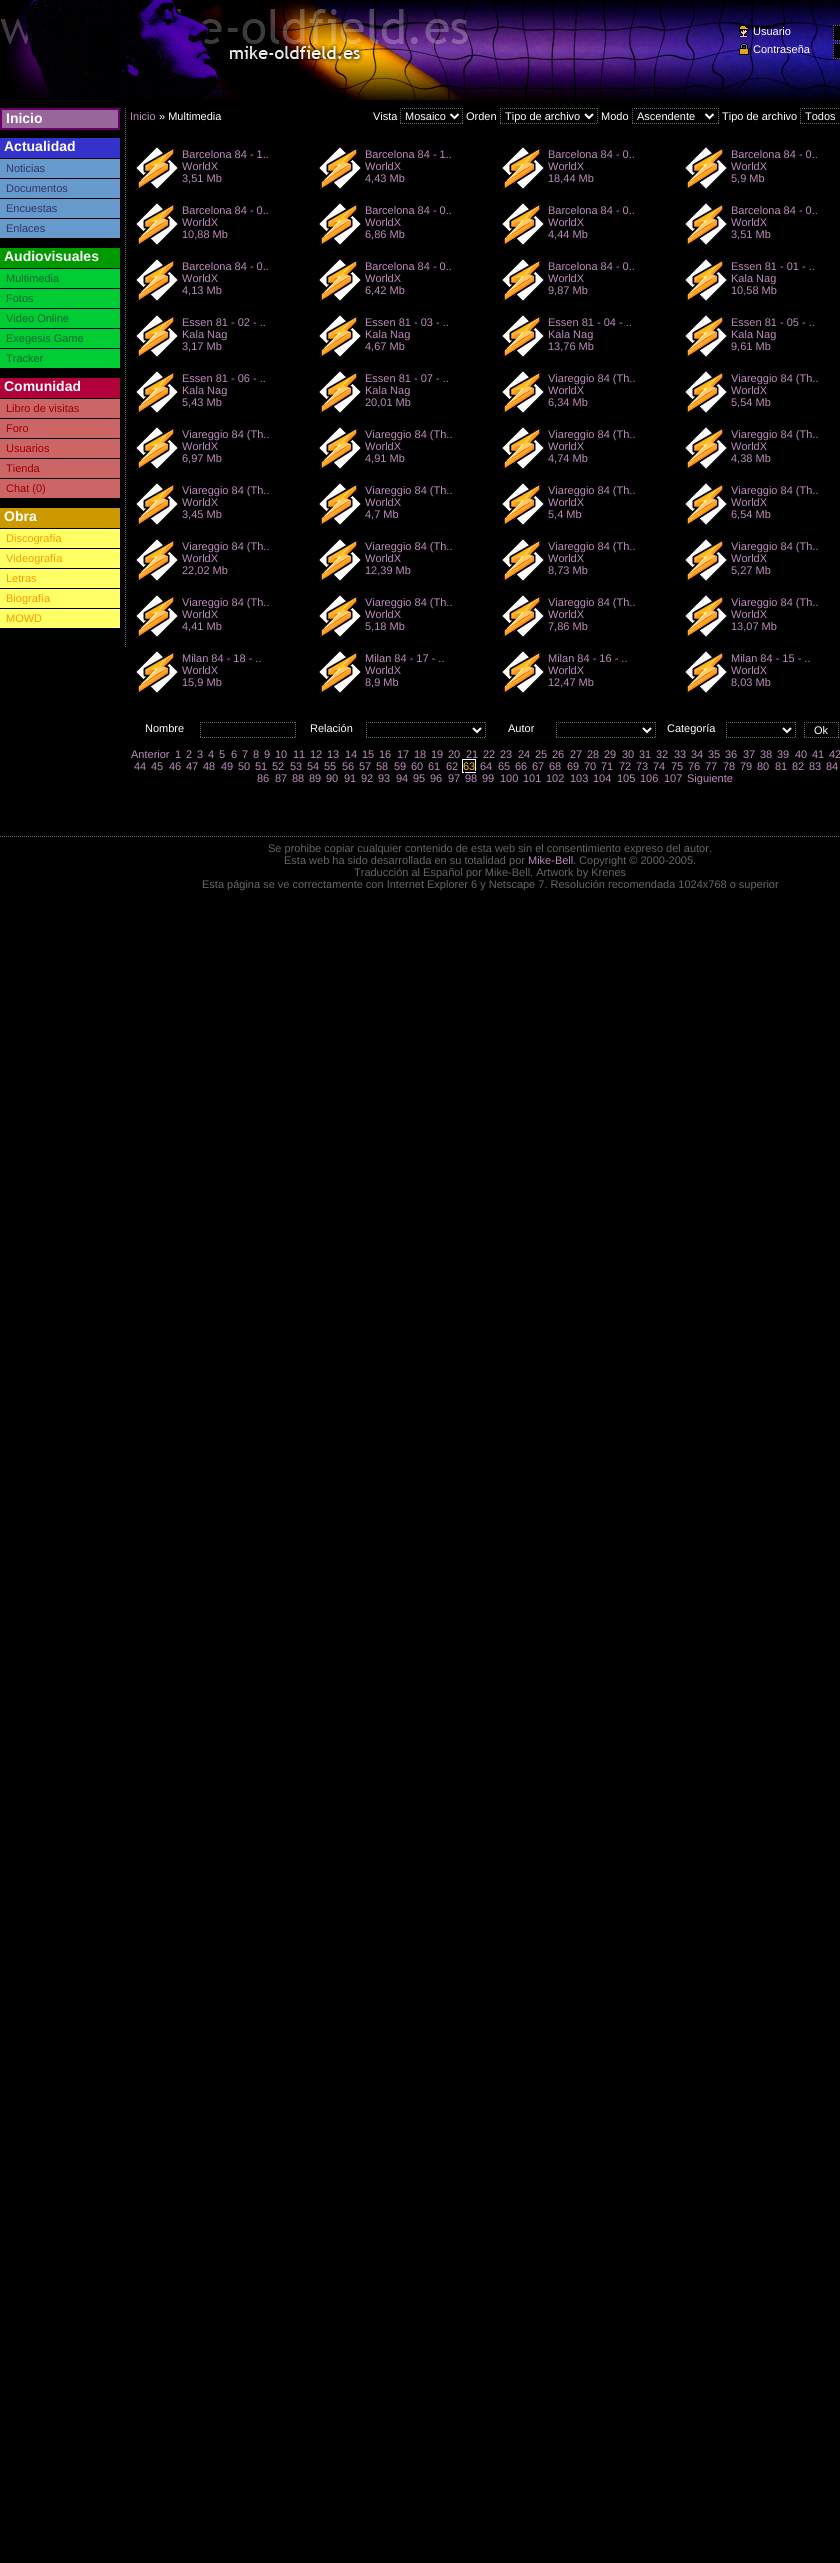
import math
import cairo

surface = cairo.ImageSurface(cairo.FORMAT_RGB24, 840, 2563)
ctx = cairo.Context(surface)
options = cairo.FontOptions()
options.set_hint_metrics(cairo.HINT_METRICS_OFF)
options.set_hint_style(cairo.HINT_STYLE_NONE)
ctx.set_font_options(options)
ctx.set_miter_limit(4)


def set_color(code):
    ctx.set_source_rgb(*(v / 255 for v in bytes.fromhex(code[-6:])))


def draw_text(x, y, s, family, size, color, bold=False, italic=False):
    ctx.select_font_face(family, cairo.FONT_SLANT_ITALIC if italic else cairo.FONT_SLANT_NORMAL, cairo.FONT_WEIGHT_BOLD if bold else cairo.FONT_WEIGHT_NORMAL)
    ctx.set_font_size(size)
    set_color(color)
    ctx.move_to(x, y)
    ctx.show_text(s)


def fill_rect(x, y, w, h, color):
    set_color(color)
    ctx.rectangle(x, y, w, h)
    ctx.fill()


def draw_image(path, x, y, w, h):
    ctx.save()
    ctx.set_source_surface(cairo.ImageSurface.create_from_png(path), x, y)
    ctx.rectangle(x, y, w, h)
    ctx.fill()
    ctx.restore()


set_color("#000000")
ctx.paint()
draw_image("assets/img1.png", 0, 0, 840, 100)
draw_image("assets/img2.png", 739, 25, 10, 12)
draw_text(753, 35, "Usuario", "Liberation Sans", 11, "#ffffff")
fill_rect(833, 25, 7, 16, "#000000")
ctx.new_path()
ctx.move_to(833, 25.5)
ctx.line_to(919, 25.5)
ctx.move_to(833, 40.5)
ctx.line_to(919, 40.5)
ctx.move_to(833.5, 25)
ctx.line_to(833.5, 41)
set_color("#666666")
ctx.set_line_width(1)
ctx.set_dash([1, 1])
ctx.stroke()
draw_image("assets/img3.png", 739, 43, 10, 12)
draw_text(753, 53, "Contraseña", "Liberation Sans", 11, "#ffffff")
fill_rect(833, 43, 7, 16, "#000000")
ctx.new_path()
ctx.move_to(833, 43.5)
ctx.line_to(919, 43.5)
ctx.move_to(833, 58.5)
ctx.line_to(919, 58.5)
ctx.move_to(833.5, 43)
ctx.line_to(833.5, 59)
set_color("#666666")
ctx.stroke()
ctx.new_path()
ctx.move_to(125.5, 108)
ctx.line_to(125.5, 648)
ctx.stroke()
set_color("#996699")
ctx.rectangle(1, 109, 118, 20)
ctx.fill_preserve()
set_color("#660066")
ctx.set_line_width(2)
ctx.set_dash([])
ctx.stroke()
draw_text(6, 123, "Inicio", "Liberation Sans", 14, "#ffffff", bold=True)
fill_rect(0, 138, 120, 20, "#3333cc")
draw_text(4, 151, "Actualidad", "Liberation Sans", 14, "#ffffff", bold=True)
fill_rect(0, 159, 120, 19, "#6699cc")
draw_text(6, 172, "Noticias", "Liberation Sans", 11, "#333366")
fill_rect(0, 179, 120, 19, "#6699cc")
draw_text(6, 192, "Documentos", "Liberation Sans", 11, "#333366")
fill_rect(0, 199, 120, 19, "#6699cc")
draw_text(6, 212, "Encuestas", "Liberation Sans", 11, "#333366")
fill_rect(0, 219, 120, 19, "#6699cc")
draw_text(6, 232, "Enlaces", "Liberation Sans", 11, "#333366")
fill_rect(0, 248, 120, 20, "#009900")
draw_text(4, 261, "Audiovisuales", "Liberation Sans", 14, "#ffffff", bold=True)
fill_rect(0, 269, 120, 19, "#00cc33")
draw_text(6, 282, "Multimedia", "Liberation Sans", 11, "#006633")
fill_rect(0, 289, 120, 19, "#00cc33")
draw_text(6, 302, "Fotos", "Liberation Sans", 11, "#006633")
fill_rect(0, 309, 120, 19, "#00cc33")
draw_text(6, 322, "Video Online", "Liberation Sans", 11, "#006633")
fill_rect(0, 329, 120, 19, "#00cc33")
draw_text(6, 342, "Exegesis Game", "Liberation Sans", 11, "#006633")
fill_rect(0, 349, 120, 19, "#00cc33")
draw_text(6, 362, "Tracker", "Liberation Sans", 11, "#006633")
fill_rect(0, 378, 120, 20, "#b1013b")
draw_text(4, 391, "Comunidad", "Liberation Sans", 14, "#ffffff", bold=True)
fill_rect(0, 399, 120, 19, "#cc6666")
draw_text(6, 412, "Libro de visitas", "Liberation Sans", 11, "#990000")
fill_rect(0, 419, 120, 19, "#cc6666")
draw_text(6, 432, "Foro", "Liberation Sans", 11, "#990000")
fill_rect(0, 439, 120, 19, "#cc6666")
draw_text(6, 452, "Usuarios", "Liberation Sans", 11, "#990000")
fill_rect(0, 459, 120, 19, "#cc6666")
draw_text(6, 472, "Tienda", "Liberation Sans", 11, "#990000")
fill_rect(0, 479, 120, 19, "#cc6666")
draw_text(6, 492, "Chat (0)", "Liberation Sans", 11, "#990000")
fill_rect(0, 508, 120, 20, "#cc9900")
draw_text(4, 521, "Obra", "Liberation Sans", 14, "#ffffff", bold=True)
fill_rect(0, 529, 120, 19, "#ffff66")
draw_text(6, 542, "Discografía", "Liberation Sans", 11, "#ff9900")
fill_rect(0, 549, 120, 19, "#ffff66")
draw_text(6, 562, "Videografía", "Liberation Sans", 11, "#ff9900")
fill_rect(0, 569, 120, 19, "#ffff66")
draw_text(6, 582, "Letras", "Liberation Sans", 11, "#ff9900")
fill_rect(0, 589, 120, 19, "#ffff66")
draw_text(6, 602, "Biografía", "Liberation Sans", 11, "#ff9900")
fill_rect(0, 609, 120, 19, "#ffff66")
draw_text(6, 622, "MOWD", "Liberation Sans", 11, "#ff9900")
draw_text(130, 120, "Inicio", "Liberation Sans", 11, "#bd8bbd")
draw_text(159, 120, "» Multimedia", "Liberation Sans", 11, "#ffffff")
draw_text(373, 120, "Vista", "Liberation Sans", 11, "#ffffff")
ctx.new_path()
ctx.move_to(400, 108.5)
ctx.line_to(463, 108.5)
ctx.move_to(462.5, 108)
ctx.line_to(462.5, 124)
ctx.move_to(400, 123.5)
ctx.line_to(463, 123.5)
ctx.move_to(400.5, 108)
ctx.line_to(400.5, 124)
set_color("#666666")
ctx.set_line_width(1)
ctx.set_dash([1, 1])
ctx.stroke()
ctx.new_path()
ctx.move_to(450.5, 114)
ctx.line_to(454.5, 118)
ctx.line_to(458.5, 114)
set_color("#ffffff")
ctx.set_line_width(2)
ctx.set_dash([])
ctx.stroke()
draw_text(405, 120, "Mosaico", "Liberation Sans", 11, "#ffffff")
draw_text(466, 120, "Orden", "Liberation Sans", 11, "#ffffff")
ctx.new_path()
ctx.move_to(500, 108.5)
ctx.line_to(598, 108.5)
set_color("#666666")
ctx.set_line_width(1)
ctx.set_dash([1, 1])
ctx.stroke()
ctx.new_path()
ctx.move_to(597.5, 108)
ctx.line_to(597.5, 124)
ctx.stroke()
ctx.new_path()
ctx.move_to(500, 123.5)
ctx.line_to(598, 123.5)
ctx.stroke()
ctx.new_path()
ctx.move_to(500.5, 108)
ctx.line_to(500.5, 124)
ctx.stroke()
ctx.new_path()
ctx.move_to(585, 114)
ctx.line_to(589, 118)
ctx.line_to(593, 114)
set_color("#ffffff")
ctx.set_line_width(2)
ctx.set_dash([])
ctx.stroke()
draw_text(505, 120, "Tipo de archivo", "Liberation Sans", 11, "#ffffff")
draw_text(601, 120, "Modo", "Liberation Sans", 11, "#ffffff")
ctx.new_path()
ctx.move_to(632, 108.5)
ctx.line_to(719, 108.5)
set_color("#666666")
ctx.set_line_width(1)
ctx.set_dash([1, 1])
ctx.stroke()
ctx.new_path()
ctx.move_to(718.5, 108)
ctx.line_to(718.5, 124)
ctx.stroke()
ctx.new_path()
ctx.move_to(632, 123.5)
ctx.line_to(719, 123.5)
ctx.stroke()
ctx.new_path()
ctx.move_to(632.5, 108)
ctx.line_to(632.5, 124)
ctx.stroke()
ctx.new_path()
ctx.move_to(705.5, 114)
ctx.line_to(709.5, 118)
ctx.line_to(713.5, 114)
set_color("#ffffff")
ctx.set_line_width(2)
ctx.set_dash([])
ctx.stroke()
draw_text(637, 120, "Ascendente", "Liberation Sans", 11, "#ffffff")
draw_text(722, 120, "Tipo de archivo", "Liberation Sans", 11, "#ffffff")
ctx.new_path()
ctx.move_to(800, 108.5)
ctx.line_to(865, 108.5)
ctx.move_to(800, 123.5)
ctx.line_to(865, 123.5)
ctx.move_to(800.5, 108)
ctx.line_to(800.5, 124)
set_color("#666666")
ctx.set_line_width(1)
ctx.set_dash([1, 1])
ctx.stroke()
draw_text(805, 120, "Todos", "Liberation Sans", 11, "#ffffff")
draw_image("assets/img4.png", 136, 147, 42, 42)
draw_text(182, 158, "Barcelona 84 - 1..", "Liberation Sans", 11, "#bd8bbd")
draw_text(182, 170, "WorldX", "Liberation Sans", 11, "#bd8bbd")
draw_text(182, 182, "3,51 Mb", "Liberation Sans", 11, "#bd8bbd")
draw_image("assets/img4.png", 319, 147, 42, 42)
draw_text(365, 158, "Barcelona 84 - 1..", "Liberation Sans", 11, "#bd8bbd")
draw_text(365, 170, "WorldX", "Liberation Sans", 11, "#bd8bbd")
draw_text(365, 182, "4,43 Mb", "Liberation Sans", 11, "#bd8bbd")
draw_image("assets/img4.png", 502, 147, 42, 42)
draw_text(548, 158, "Barcelona 84 - 0..", "Liberation Sans", 11, "#bd8bbd")
draw_text(548, 170, "WorldX", "Liberation Sans", 11, "#bd8bbd")
draw_text(548, 182, "18,44 Mb", "Liberation Sans", 11, "#bd8bbd")
draw_image("assets/img4.png", 685, 147, 42, 42)
draw_text(731, 158, "Barcelona 84 - 0..", "Liberation Sans", 11, "#bd8bbd")
draw_text(731, 170, "WorldX", "Liberation Sans", 11, "#bd8bbd")
draw_text(731, 182, "5,9 Mb", "Liberation Sans", 11, "#bd8bbd")
draw_image("assets/img4.png", 136, 203, 42, 42)
draw_text(182, 214, "Barcelona 84 - 0..", "Liberation Sans", 11, "#bd8bbd")
draw_text(182, 226, "WorldX", "Liberation Sans", 11, "#bd8bbd")
draw_text(182, 238, "10,88 Mb", "Liberation Sans", 11, "#bd8bbd")
draw_image("assets/img4.png", 319, 203, 42, 42)
draw_text(365, 214, "Barcelona 84 - 0..", "Liberation Sans", 11, "#bd8bbd")
draw_text(365, 226, "WorldX", "Liberation Sans", 11, "#bd8bbd")
draw_text(365, 238, "6,86 Mb", "Liberation Sans", 11, "#bd8bbd")
draw_image("assets/img4.png", 502, 203, 42, 42)
draw_text(548, 214, "Barcelona 84 - 0..", "Liberation Sans", 11, "#bd8bbd")
draw_text(548, 226, "WorldX", "Liberation Sans", 11, "#bd8bbd")
draw_text(548, 238, "4,44 Mb", "Liberation Sans", 11, "#bd8bbd")
draw_image("assets/img4.png", 685, 203, 42, 42)
draw_text(731, 214, "Barcelona 84 - 0..", "Liberation Sans", 11, "#bd8bbd")
draw_text(731, 226, "WorldX", "Liberation Sans", 11, "#bd8bbd")
draw_text(731, 238, "3,51 Mb", "Liberation Sans", 11, "#bd8bbd")
draw_image("assets/img4.png", 136, 259, 42, 42)
draw_text(182, 270, "Barcelona 84 - 0..", "Liberation Sans", 11, "#bd8bbd")
draw_text(182, 282, "WorldX", "Liberation Sans", 11, "#bd8bbd")
draw_text(182, 294, "4,13 Mb", "Liberation Sans", 11, "#bd8bbd")
draw_image("assets/img4.png", 319, 259, 42, 42)
draw_text(365, 270, "Barcelona 84 - 0..", "Liberation Sans", 11, "#bd8bbd")
draw_text(365, 282, "WorldX", "Liberation Sans", 11, "#bd8bbd")
draw_text(365, 294, "6,42 Mb", "Liberation Sans", 11, "#bd8bbd")
draw_image("assets/img4.png", 502, 259, 42, 42)
draw_text(548, 270, "Barcelona 84 - 0..", "Liberation Sans", 11, "#bd8bbd")
draw_text(548, 282, "WorldX", "Liberation Sans", 11, "#bd8bbd")
draw_text(548, 294, "9,87 Mb", "Liberation Sans", 11, "#bd8bbd")
draw_image("assets/img4.png", 685, 259, 42, 42)
draw_text(731, 270, "Essen 81 - 01 - ..", "Liberation Sans", 11, "#bd8bbd")
draw_text(731, 282, "Kala Nag", "Liberation Sans", 11, "#bd8bbd")
draw_text(731, 294, "10,58 Mb", "Liberation Sans", 11, "#bd8bbd")
draw_image("assets/img4.png", 136, 315, 42, 42)
draw_text(182, 326, "Essen 81 - 02 - ..", "Liberation Sans", 11, "#bd8bbd")
draw_text(182, 338, "Kala Nag", "Liberation Sans", 11, "#bd8bbd")
draw_text(182, 350, "3,17 Mb", "Liberation Sans", 11, "#bd8bbd")
draw_image("assets/img4.png", 319, 315, 42, 42)
draw_text(365, 326, "Essen 81 - 03 - ..", "Liberation Sans", 11, "#bd8bbd")
draw_text(365, 338, "Kala Nag", "Liberation Sans", 11, "#bd8bbd")
draw_text(365, 350, "4,67 Mb", "Liberation Sans", 11, "#bd8bbd")
draw_image("assets/img4.png", 502, 315, 42, 42)
draw_text(548, 326, "Essen 81 - 04 - ..", "Liberation Sans", 11, "#bd8bbd")
draw_text(548, 338, "Kala Nag", "Liberation Sans", 11, "#bd8bbd")
draw_text(548, 350, "13,76 Mb", "Liberation Sans", 11, "#bd8bbd")
draw_image("assets/img4.png", 685, 315, 42, 42)
draw_text(731, 326, "Essen 81 - 05 - ..", "Liberation Sans", 11, "#bd8bbd")
draw_text(731, 338, "Kala Nag", "Liberation Sans", 11, "#bd8bbd")
draw_text(731, 350, "9,61 Mb", "Liberation Sans", 11, "#bd8bbd")
draw_image("assets/img4.png", 136, 371, 42, 42)
draw_text(182, 382, "Essen 81 - 06 - ..", "Liberation Sans", 11, "#bd8bbd")
draw_text(182, 394, "Kala Nag", "Liberation Sans", 11, "#bd8bbd")
draw_text(182, 406, "5,43 Mb", "Liberation Sans", 11, "#bd8bbd")
draw_image("assets/img4.png", 319, 371, 42, 42)
draw_text(365, 382, "Essen 81 - 07 - ..", "Liberation Sans", 11, "#bd8bbd")
draw_text(365, 394, "Kala Nag", "Liberation Sans", 11, "#bd8bbd")
draw_text(365, 406, "20,01 Mb", "Liberation Sans", 11, "#bd8bbd")
draw_image("assets/img4.png", 502, 371, 42, 42)
draw_text(548, 382, "Viareggio 84 (Th..", "Liberation Sans", 11, "#bd8bbd")
draw_text(548, 394, "WorldX", "Liberation Sans", 11, "#bd8bbd")
draw_text(548, 406, "6,34 Mb", "Liberation Sans", 11, "#bd8bbd")
draw_image("assets/img4.png", 685, 371, 42, 42)
draw_text(731, 382, "Viareggio 84 (Th..", "Liberation Sans", 11, "#bd8bbd")
draw_text(731, 394, "WorldX", "Liberation Sans", 11, "#bd8bbd")
draw_text(731, 406, "5,54 Mb", "Liberation Sans", 11, "#bd8bbd")
draw_image("assets/img4.png", 136, 427, 42, 42)
draw_text(182, 438, "Viareggio 84 (Th..", "Liberation Sans", 11, "#bd8bbd")
draw_text(182, 450, "WorldX", "Liberation Sans", 11, "#bd8bbd")
draw_text(182, 462, "6,97 Mb", "Liberation Sans", 11, "#bd8bbd")
draw_image("assets/img4.png", 319, 427, 42, 42)
draw_text(365, 438, "Viareggio 84 (Th..", "Liberation Sans", 11, "#bd8bbd")
draw_text(365, 450, "WorldX", "Liberation Sans", 11, "#bd8bbd")
draw_text(365, 462, "4,91 Mb", "Liberation Sans", 11, "#bd8bbd")
draw_image("assets/img4.png", 502, 427, 42, 42)
draw_text(548, 438, "Viareggio 84 (Th..", "Liberation Sans", 11, "#bd8bbd")
draw_text(548, 450, "WorldX", "Liberation Sans", 11, "#bd8bbd")
draw_text(548, 462, "4,74 Mb", "Liberation Sans", 11, "#bd8bbd")
draw_image("assets/img4.png", 685, 427, 42, 42)
draw_text(731, 438, "Viareggio 84 (Th..", "Liberation Sans", 11, "#bd8bbd")
draw_text(731, 450, "WorldX", "Liberation Sans", 11, "#bd8bbd")
draw_text(731, 462, "4,38 Mb", "Liberation Sans", 11, "#bd8bbd")
draw_image("assets/img4.png", 136, 483, 42, 42)
draw_text(182, 494, "Viareggio 84 (Th..", "Liberation Sans", 11, "#bd8bbd")
draw_text(182, 506, "WorldX", "Liberation Sans", 11, "#bd8bbd")
draw_text(182, 518, "3,45 Mb", "Liberation Sans", 11, "#bd8bbd")
draw_image("assets/img4.png", 319, 483, 42, 42)
draw_text(365, 494, "Viareggio 84 (Th..", "Liberation Sans", 11, "#bd8bbd")
draw_text(365, 506, "WorldX", "Liberation Sans", 11, "#bd8bbd")
draw_text(365, 518, "4,7 Mb", "Liberation Sans", 11, "#bd8bbd")
draw_image("assets/img4.png", 502, 483, 42, 42)
draw_text(548, 494, "Viareggio 84 (Th..", "Liberation Sans", 11, "#bd8bbd")
draw_text(548, 506, "WorldX", "Liberation Sans", 11, "#bd8bbd")
draw_text(548, 518, "5,4 Mb", "Liberation Sans", 11, "#bd8bbd")
draw_image("assets/img4.png", 685, 483, 42, 42)
draw_text(731, 494, "Viareggio 84 (Th..", "Liberation Sans", 11, "#bd8bbd")
draw_text(731, 506, "WorldX", "Liberation Sans", 11, "#bd8bbd")
draw_text(731, 518, "6,54 Mb", "Liberation Sans", 11, "#bd8bbd")
draw_image("assets/img4.png", 136, 539, 42, 42)
draw_text(182, 550, "Viareggio 84 (Th..", "Liberation Sans", 11, "#bd8bbd")
draw_text(182, 562, "WorldX", "Liberation Sans", 11, "#bd8bbd")
draw_text(182, 574, "22,02 Mb", "Liberation Sans", 11, "#bd8bbd")
draw_image("assets/img4.png", 319, 539, 42, 42)
draw_text(365, 550, "Viareggio 84 (Th..", "Liberation Sans", 11, "#bd8bbd")
draw_text(365, 562, "WorldX", "Liberation Sans", 11, "#bd8bbd")
draw_text(365, 574, "12,39 Mb", "Liberation Sans", 11, "#bd8bbd")
draw_image("assets/img4.png", 502, 539, 42, 42)
draw_text(548, 550, "Viareggio 84 (Th..", "Liberation Sans", 11, "#bd8bbd")
draw_text(548, 562, "WorldX", "Liberation Sans", 11, "#bd8bbd")
draw_text(548, 574, "8,73 Mb", "Liberation Sans", 11, "#bd8bbd")
draw_image("assets/img4.png", 685, 539, 42, 42)
draw_text(731, 550, "Viareggio 84 (Th..", "Liberation Sans", 11, "#bd8bbd")
draw_text(731, 562, "WorldX", "Liberation Sans", 11, "#bd8bbd")
draw_text(731, 574, "5,27 Mb", "Liberation Sans", 11, "#bd8bbd")
draw_image("assets/img4.png", 136, 595, 42, 42)
draw_text(182, 606, "Viareggio 84 (Th..", "Liberation Sans", 11, "#bd8bbd")
draw_text(182, 618, "WorldX", "Liberation Sans", 11, "#bd8bbd")
draw_text(182, 630, "4,41 Mb", "Liberation Sans", 11, "#bd8bbd")
draw_image("assets/img4.png", 319, 595, 42, 42)
draw_text(365, 606, "Viareggio 84 (Th..", "Liberation Sans", 11, "#bd8bbd")
draw_text(365, 618, "WorldX", "Liberation Sans", 11, "#bd8bbd")
draw_text(365, 630, "5,18 Mb", "Liberation Sans", 11, "#bd8bbd")
draw_image("assets/img4.png", 502, 595, 42, 42)
draw_text(548, 606, "Viareggio 84 (Th..", "Liberation Sans", 11, "#bd8bbd")
draw_text(548, 618, "WorldX", "Liberation Sans", 11, "#bd8bbd")
draw_text(548, 630, "7,86 Mb", "Liberation Sans", 11, "#bd8bbd")
draw_image("assets/img4.png", 685, 595, 42, 42)
draw_text(731, 606, "Viareggio 84 (Th..", "Liberation Sans", 11, "#bd8bbd")
draw_text(731, 618, "WorldX", "Liberation Sans", 11, "#bd8bbd")
draw_text(731, 630, "13,07 Mb", "Liberation Sans", 11, "#bd8bbd")
draw_image("assets/img4.png", 136, 651, 42, 42)
draw_text(182, 662, "Milan 84 - 18 - ..", "Liberation Sans", 11, "#bd8bbd")
draw_text(182, 674, "WorldX", "Liberation Sans", 11, "#bd8bbd")
draw_text(182, 686, "15,9 Mb", "Liberation Sans", 11, "#bd8bbd")
draw_image("assets/img4.png", 319, 651, 42, 42)
draw_text(365, 662, "Milan 84 - 17 - ..", "Liberation Sans", 11, "#bd8bbd")
draw_text(365, 674, "WorldX", "Liberation Sans", 11, "#bd8bbd")
draw_text(365, 686, "8,9 Mb", "Liberation Sans", 11, "#bd8bbd")
draw_image("assets/img4.png", 502, 651, 42, 42)
draw_text(548, 662, "Milan 84 - 16 - ..", "Liberation Sans", 11, "#bd8bbd")
draw_text(548, 674, "WorldX", "Liberation Sans", 11, "#bd8bbd")
draw_text(548, 686, "12,47 Mb", "Liberation Sans", 11, "#bd8bbd")
draw_image("assets/img4.png", 685, 651, 42, 42)
draw_text(731, 662, "Milan 84 - 15 - ..", "Liberation Sans", 11, "#bd8bbd")
draw_text(731, 674, "WorldX", "Liberation Sans", 11, "#bd8bbd")
draw_text(731, 686, "8,03 Mb", "Liberation Sans", 11, "#bd8bbd")
draw_text(145, 732, "Nombre", "Liberation Sans", 11, "#ffffff")
ctx.new_path()
ctx.move_to(200, 722.5)
ctx.line_to(296, 722.5)
set_color("#666666")
ctx.stroke()
ctx.new_path()
ctx.move_to(295.5, 722)
ctx.line_to(295.5, 738)
ctx.stroke()
ctx.new_path()
ctx.move_to(200, 737.5)
ctx.line_to(296, 737.5)
ctx.stroke()
ctx.new_path()
ctx.move_to(200.5, 722)
ctx.line_to(200.5, 738)
ctx.stroke()
draw_text(310, 732, "Relación", "Liberation Sans", 11, "#ffffff")
ctx.new_path()
ctx.move_to(366, 722.5)
ctx.line_to(486, 722.5)
set_color("#666666")
ctx.stroke()
ctx.new_path()
ctx.move_to(485.5, 722)
ctx.line_to(485.5, 738)
ctx.stroke()
ctx.new_path()
ctx.move_to(366, 737.5)
ctx.line_to(486, 737.5)
ctx.stroke()
ctx.new_path()
ctx.move_to(366.5, 722)
ctx.line_to(366.5, 738)
ctx.stroke()
ctx.new_path()
ctx.move_to(473, 728)
ctx.line_to(477, 732)
ctx.line_to(481, 728)
set_color("#ffffff")
ctx.set_line_width(2)
ctx.set_dash([])
ctx.stroke()
draw_text(508, 732, "Autor", "Liberation Sans", 11, "#ffffff")
ctx.new_path()
ctx.move_to(556, 722.5)
ctx.line_to(656, 722.5)
set_color("#666666")
ctx.set_line_width(1)
ctx.set_dash([1, 1])
ctx.stroke()
ctx.new_path()
ctx.move_to(655.5, 722)
ctx.line_to(655.5, 738)
ctx.stroke()
ctx.new_path()
ctx.move_to(556, 737.5)
ctx.line_to(656, 737.5)
ctx.stroke()
ctx.new_path()
ctx.move_to(556.5, 722)
ctx.line_to(556.5, 738)
ctx.stroke()
ctx.new_path()
ctx.move_to(643, 728)
ctx.line_to(647, 732)
ctx.line_to(651, 728)
set_color("#ffffff")
ctx.set_line_width(2)
ctx.set_dash([])
ctx.stroke()
draw_text(667, 732, "Categoría", "Liberation Sans", 11, "#ffffff")
ctx.new_path()
ctx.move_to(726, 722.5)
ctx.line_to(796, 722.5)
set_color("#666666")
ctx.set_line_width(1)
ctx.set_dash([1, 1])
ctx.stroke()
ctx.new_path()
ctx.move_to(795.5, 722)
ctx.line_to(795.5, 738)
ctx.stroke()
ctx.new_path()
ctx.move_to(726, 737.5)
ctx.line_to(796, 737.5)
ctx.stroke()
ctx.new_path()
ctx.move_to(726.5, 722)
ctx.line_to(726.5, 738)
ctx.stroke()
ctx.new_path()
ctx.move_to(783, 728)
ctx.line_to(787, 732)
ctx.line_to(791, 728)
set_color("#ffffff")
ctx.set_line_width(2)
ctx.set_dash([])
ctx.stroke()
ctx.new_path()
ctx.move_to(804, 722.5)
ctx.line_to(839, 722.5)
ctx.move_to(838.5, 722)
ctx.line_to(838.5, 738)
ctx.move_to(804, 737.5)
ctx.line_to(839, 737.5)
ctx.move_to(804.5, 722)
ctx.line_to(804.5, 738)
set_color("#666666")
ctx.set_line_width(1)
ctx.set_dash([1, 1])
ctx.stroke()
draw_text(814, 734, "Ok", "Liberation Sans", 11, "#ffffff")
draw_text(131, 758, "Anterior", "Liberation Sans", 11, "#bd8bbd")
draw_text(175, 758, "1", "Liberation Sans", 11, "#bd8bbd")
draw_text(186, 758, "2", "Liberation Sans", 11, "#bd8bbd")
draw_text(197, 758, "3", "Liberation Sans", 11, "#bd8bbd")
draw_text(208, 758, "4", "Liberation Sans", 11, "#bd8bbd")
draw_text(219, 758, "5", "Liberation Sans", 11, "#bd8bbd")
draw_text(231, 758, "6", "Liberation Sans", 11, "#bd8bbd")
draw_text(242, 758, "7", "Liberation Sans", 11, "#bd8bbd")
draw_text(253, 758, "8", "Liberation Sans", 11, "#bd8bbd")
draw_text(264, 758, "9", "Liberation Sans", 11, "#bd8bbd")
draw_text(275, 758, "10", "Liberation Sans", 11, "#bd8bbd")
draw_text(293, 758, "11", "Liberation Sans", 11, "#bd8bbd")
draw_text(310, 758, "12", "Liberation Sans", 11, "#bd8bbd")
draw_text(327, 758, "13", "Liberation Sans", 11, "#bd8bbd")
draw_text(345, 758, "14", "Liberation Sans", 11, "#bd8bbd")
draw_text(362, 758, "15", "Liberation Sans", 11, "#bd8bbd")
draw_text(379, 758, "16", "Liberation Sans", 11, "#bd8bbd")
draw_text(397, 758, "17", "Liberation Sans", 11, "#bd8bbd")
draw_text(414, 758, "18", "Liberation Sans", 11, "#bd8bbd")
draw_text(431, 758, "19", "Liberation Sans", 11, "#bd8bbd")
draw_text(448, 758, "20", "Liberation Sans", 11, "#bd8bbd")
draw_text(466, 758, "21", "Liberation Sans", 11, "#bd8bbd")
draw_text(483, 758, "22", "Liberation Sans", 11, "#bd8bbd")
draw_text(500, 758, "23", "Liberation Sans", 11, "#bd8bbd")
draw_text(518, 758, "24", "Liberation Sans", 11, "#bd8bbd")
draw_text(535, 758, "25", "Liberation Sans", 11, "#bd8bbd")
draw_text(552, 758, "26", "Liberation Sans", 11, "#bd8bbd")
draw_text(570, 758, "27", "Liberation Sans", 11, "#bd8bbd")
draw_text(587, 758, "28", "Liberation Sans", 11, "#bd8bbd")
draw_text(604, 758, "29", "Liberation Sans", 11, "#bd8bbd")
draw_text(622, 758, "30", "Liberation Sans", 11, "#bd8bbd")
draw_text(639, 758, "31", "Liberation Sans", 11, "#bd8bbd")
draw_text(656, 758, "32", "Liberation Sans", 11, "#bd8bbd")
draw_text(674, 758, "33", "Liberation Sans", 11, "#bd8bbd")
draw_text(691, 758, "34", "Liberation Sans", 11, "#bd8bbd")
draw_text(708, 758, "35", "Liberation Sans", 11, "#bd8bbd")
draw_text(725, 758, "36", "Liberation Sans", 11, "#bd8bbd")
draw_text(743, 758, "37", "Liberation Sans", 11, "#bd8bbd")
draw_text(760, 758, "38", "Liberation Sans", 11, "#bd8bbd")
draw_text(777, 758, "39", "Liberation Sans", 11, "#bd8bbd")
draw_text(795, 758, "40", "Liberation Sans", 11, "#bd8bbd")
draw_text(812, 758, "41", "Liberation Sans", 11, "#bd8bbd")
draw_text(829, 758, "42", "Liberation Sans", 11, "#bd8bbd")
draw_text(134, 770, "44", "Liberation Sans", 11, "#bd8bbd")
draw_text(151, 770, "45", "Liberation Sans", 11, "#bd8bbd")
draw_text(169, 770, "46", "Liberation Sans", 11, "#bd8bbd")
draw_text(186, 770, "47", "Liberation Sans", 11, "#bd8bbd")
draw_text(203, 770, "48", "Liberation Sans", 11, "#bd8bbd")
draw_text(221, 770, "49", "Liberation Sans", 11, "#bd8bbd")
draw_text(238, 770, "50", "Liberation Sans", 11, "#bd8bbd")
draw_text(255, 770, "51", "Liberation Sans", 11, "#bd8bbd")
draw_text(272, 770, "52", "Liberation Sans", 11, "#bd8bbd")
draw_text(290, 770, "53", "Liberation Sans", 11, "#bd8bbd")
draw_text(307, 770, "54", "Liberation Sans", 11, "#bd8bbd")
draw_text(324, 770, "55", "Liberation Sans", 11, "#bd8bbd")
draw_text(342, 770, "56", "Liberation Sans", 11, "#bd8bbd")
draw_text(359, 770, "57", "Liberation Sans", 11, "#bd8bbd")
draw_text(376, 770, "58", "Liberation Sans", 11, "#bd8bbd")
draw_text(394, 770, "59", "Liberation Sans", 11, "#bd8bbd")
draw_text(411, 770, "60", "Liberation Sans", 11, "#bd8bbd")
draw_text(428, 770, "61", "Liberation Sans", 11, "#bd8bbd")
draw_text(446, 770, "62", "Liberation Sans", 11, "#bd8bbd")
ctx.rectangle(462.5, 759.5, 13, 13)
set_color("#ffffff")
ctx.set_dash([])
ctx.stroke()
draw_text(463, 770, "63", "Liberation Sans", 11, "#ffcc00")
draw_text(480, 770, "64", "Liberation Sans", 11, "#bd8bbd")
draw_text(498, 770, "65", "Liberation Sans", 11, "#bd8bbd")
draw_text(515, 770, "66", "Liberation Sans", 11, "#bd8bbd")
draw_text(532, 770, "67", "Liberation Sans", 11, "#bd8bbd")
draw_text(549, 770, "68", "Liberation Sans", 11, "#bd8bbd")
draw_text(567, 770, "69", "Liberation Sans", 11, "#bd8bbd")
draw_text(584, 770, "70", "Liberation Sans", 11, "#bd8bbd")
draw_text(601, 770, "71", "Liberation Sans", 11, "#bd8bbd")
draw_text(619, 770, "72", "Liberation Sans", 11, "#bd8bbd")
draw_text(636, 770, "73", "Liberation Sans", 11, "#bd8bbd")
draw_text(653, 770, "74", "Liberation Sans", 11, "#bd8bbd")
draw_text(671, 770, "75", "Liberation Sans", 11, "#bd8bbd")
draw_text(688, 770, "76", "Liberation Sans", 11, "#bd8bbd")
draw_text(705, 770, "77", "Liberation Sans", 11, "#bd8bbd")
draw_text(723, 770, "78", "Liberation Sans", 11, "#bd8bbd")
draw_text(740, 770, "79", "Liberation Sans", 11, "#bd8bbd")
draw_text(757, 770, "80", "Liberation Sans", 11, "#bd8bbd")
draw_text(775, 770, "81", "Liberation Sans", 11, "#bd8bbd")
draw_text(792, 770, "82", "Liberation Sans", 11, "#bd8bbd")
draw_text(809, 770, "83", "Liberation Sans", 11, "#bd8bbd")
draw_text(826, 770, "84", "Liberation Sans", 11, "#bd8bbd")
draw_text(257, 782, "86", "Liberation Sans", 11, "#bd8bbd")
draw_text(275, 782, "87", "Liberation Sans", 11, "#bd8bbd")
draw_text(292, 782, "88", "Liberation Sans", 11, "#bd8bbd")
draw_text(309, 782, "89", "Liberation Sans", 11, "#bd8bbd")
draw_text(326, 782, "90", "Liberation Sans", 11, "#bd8bbd")
draw_text(344, 782, "91", "Liberation Sans", 11, "#bd8bbd")
draw_text(361, 782, "92", "Liberation Sans", 11, "#bd8bbd")
draw_text(378, 782, "93", "Liberation Sans", 11, "#bd8bbd")
draw_text(396, 782, "94", "Liberation Sans", 11, "#bd8bbd")
draw_text(413, 782, "95", "Liberation Sans", 11, "#bd8bbd")
draw_text(430, 782, "96", "Liberation Sans", 11, "#bd8bbd")
draw_text(448, 782, "97", "Liberation Sans", 11, "#bd8bbd")
ctx.rectangle(464.5, 771.5, 13, 13)
set_color("#000000")
ctx.stroke()
draw_text(465, 782, "98", "Liberation Sans", 11, "#bd8bbd")
draw_text(482, 782, "99", "Liberation Sans", 11, "#bd8bbd")
draw_text(500, 782, "100", "Liberation Sans", 11, "#bd8bbd")
draw_text(523, 782, "101", "Liberation Sans", 11, "#bd8bbd")
draw_text(546, 782, "102", "Liberation Sans", 11, "#bd8bbd")
draw_text(570, 782, "103", "Liberation Sans", 11, "#bd8bbd")
draw_text(593, 782, "104", "Liberation Sans", 11, "#bd8bbd")
draw_text(617, 782, "105", "Liberation Sans", 11, "#bd8bbd")
draw_text(640, 782, "106", "Liberation Sans", 11, "#bd8bbd")
draw_text(664, 782, "107", "Liberation Sans", 11, "#bd8bbd")
draw_text(687, 782, "Siguiente", "Liberation Sans", 11, "#bd8bbd")
ctx.new_path()
ctx.move_to(0, 836.5)
ctx.line_to(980, 836.5)
set_color("#666666")
ctx.set_dash([1, 1])
ctx.stroke()
draw_text(268, 852, "Se prohibe copiar cualquier contenido de esta web sin el consentimiento expreso del autor.", "Liberation Sans", 11, "#666666")
draw_text(284, 864, "Esta web ha sido desarrollada en su totalidad por", "Liberation Sans", 11, "#666666")
draw_text(528, 864, "Mike-Bell", "Liberation Sans", 11, "#bd8bbd")
draw_text(573, 864, ". Copyright © 2000-2005.", "Liberation Sans", 11, "#666666")
draw_text(354, 876, "Traducción al Español por Mike-Bell. Artwork by Krenes", "Liberation Sans", 11, "#666666")
draw_text(202, 888, "Esta página se ve correctamente con Internet Explorer 6 y Netscape 7. Resolución recomendada 1024x768 o superior", "Liberation Sans", 11, "#666666")
surface.write_to_png("output.png")
